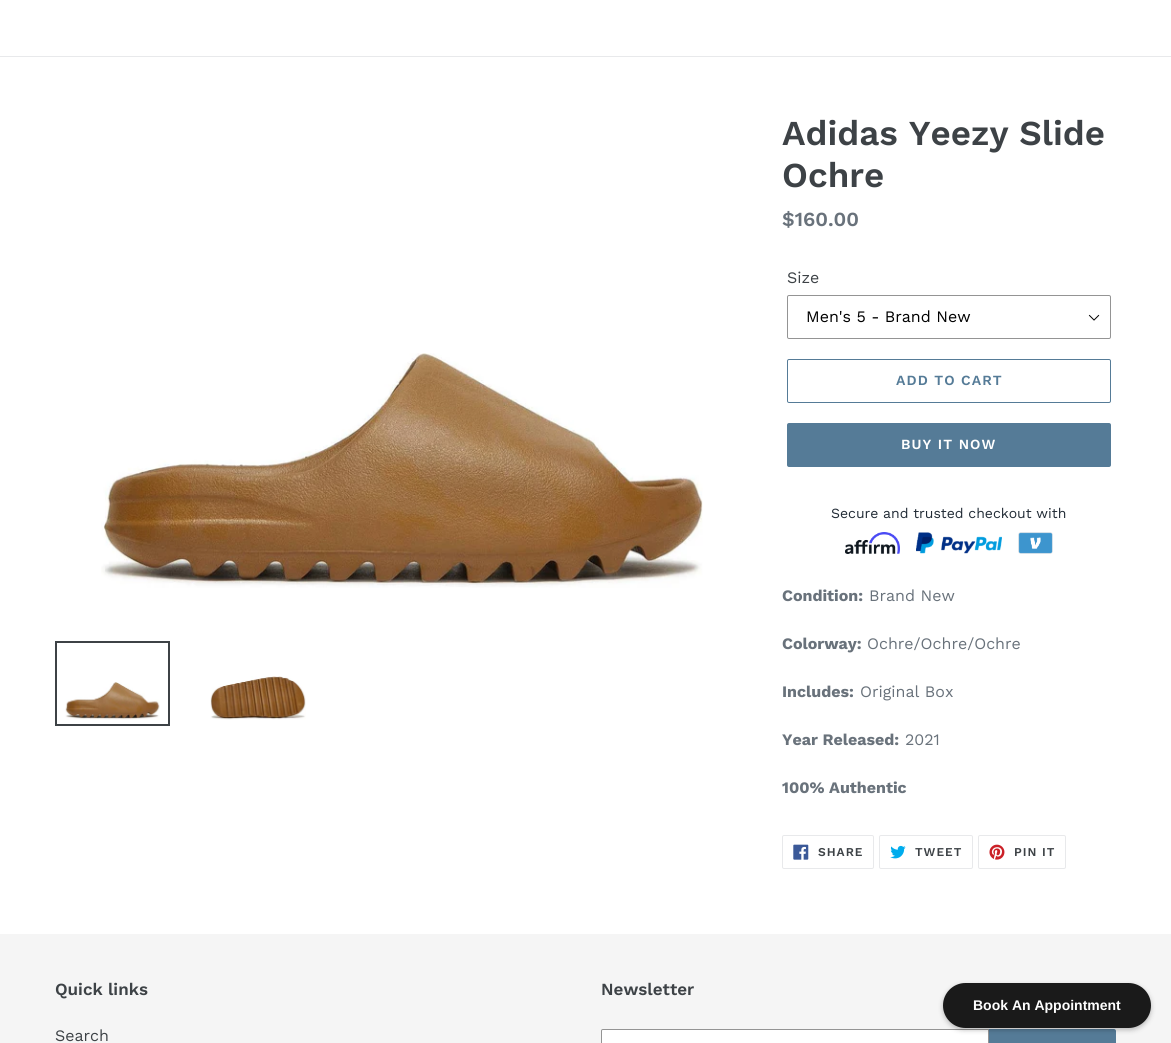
import math
import cairo

surface = cairo.ImageSurface(cairo.FORMAT_RGB24, 1171, 1043)
ctx = cairo.Context(surface)
options = cairo.FontOptions()
options.set_hint_metrics(cairo.HINT_METRICS_OFF)
options.set_hint_style(cairo.HINT_STYLE_NONE)
ctx.set_font_options(options)
ctx.set_miter_limit(4)


def set_color(code):
    ctx.set_source_rgb(*(v / 255 for v in bytes.fromhex(code[-6:])))


def draw_text(x, y, s, family, size, color, bold=False, italic=False):
    ctx.select_font_face(family, cairo.FONT_SLANT_ITALIC if italic else cairo.FONT_SLANT_NORMAL, cairo.FONT_WEIGHT_BOLD if bold else cairo.FONT_WEIGHT_NORMAL)
    ctx.set_font_size(size)
    set_color(color)
    ctx.move_to(x, y)
    ctx.show_text(s)


def draw_spaced(x, y, s, letter, word):
    ctx.move_to(x, y)
    for ch in s:
        ctx.show_text(ch)
        ctx.rel_move_to(letter + word * (ch == ' '), 0)


def fill_rect(x, y, w, h, color):
    set_color(color)
    ctx.rectangle(x, y, w, h)
    ctx.fill()


def rounded_rect(x, y, w, h, r):
    ctx.new_sub_path()
    for i, (u, v) in enumerate([(x + w - r, y + h - r), (x + r, y + h - r), (x + r, y + r), (x + w - r, y + r)]):
        ctx.arc(u, v, r, i * math.pi / 2, (i + 1) * math.pi / 2)
    ctx.close_path()


def draw_shadow(x, y, w, h, r, blur, alpha):
    ctx.push_group_with_content(cairo.CONTENT_ALPHA)
    ctx.set_operator(cairo.OPERATOR_SOURCE)
    for i in range(15, -16, -2):
        e = blur * i / 6
        if min(w, h) + 2 * e > 0:
            ctx.set_source_rgba(0, 0, 0, alpha * math.erfc((i - 1) / 8.5) / 2)
            rounded_rect(x - e, y - e, w + 2 * e, h + 2 * e, max(0, min(r + e + blur * .6, min(w, h) / 2 + e)))
            ctx.fill()
    ctx.mask(ctx.pop_group())


def draw_image(path, x, y, w, h):
    ctx.save()
    ctx.set_source_surface(cairo.ImageSurface.create_from_png(path), x, y)
    ctx.rectangle(x, y, w, h)
    ctx.fill()
    ctx.restore()


set_color("#ffffff")
ctx.paint()
fill_rect(0, 56, 1171, 1, "#e8e9eb")
draw_image("assets/img1.png", 101, 353, 602, 235)
ctx.rectangle(56, 642, 113, 83)
set_color("#3d4246")
ctx.stroke()
draw_image("assets/img2.png", 65, 682, 95, 38)
draw_image("assets/img3.png", 210, 676, 96, 44)
draw_text(782, 145, "Adidas Yeezy Slide", "Work Sans SemiBold", 35, "#3d4246")
draw_text(782, 187, "Ochre", "Work Sans SemiBold", 35, "#3d4246")
draw_text(782, 226, "$160.00", "Work Sans SemiBold", 20, "#69727b")
draw_text(787, 283, "Size", "Work Sans", 16, "#3d4246")
draw_image("assets/img4.png", 1088, 314, 12, 7)
rounded_rect(787.5, 295.5, 323, 43, 1.5)
set_color("#949494")
ctx.set_line_width(1)
ctx.stroke()
draw_text(806, 322, "Men's 5 - Brand New", "Work Sans", 16, "#000000")
rounded_rect(787.5, 359.5, 323, 43, 1.5)
set_color("#557b97")
ctx.stroke()
ctx.select_font_face("Work Sans SemiBold")
ctx.set_font_size(14)
draw_spaced(896, 385, "ADD TO CART", 1.1, 0)
rounded_rect(787, 423, 324, 44, 2)
ctx.fill()
set_color("#ffffff")
draw_spaced(901, 449, "BUY IT NOW", 1.1, 0)
draw_text(831, 518, "Secure and trusted checkout with", "Work Sans", 14, "#212b35")
draw_image("assets/img5.png", 845, 532, 55, 22)
draw_image("assets/img6.png", 916, 532, 86, 22)
draw_image("assets/img7.png", 1018, 532, 35, 22)
draw_text(782, 601, "Condition:", "Work Sans", 16, "#69727b", bold=True)
draw_text(869, 601, "Brand New", "Work Sans", 16, "#69727b")
draw_text(782, 649, "Colorway:", "Work Sans", 16, "#69727b", bold=True)
draw_text(867, 649, "Ochre/Ochre/Ochre", "Work Sans", 16, "#69727b")
draw_text(782, 697, "Includes:", "Work Sans", 16, "#69727b", bold=True)
draw_text(860, 697, "Original Box", "Work Sans", 16, "#69727b")
draw_text(782, 745, "Year Released:", "Work Sans", 16, "#69727b", bold=True)
draw_text(905, 745, "2021", "Work Sans", 16, "#69727b")
draw_text(782, 793, "100% Authentic", "Work Sans", 16, "#69727b", bold=True)
rounded_rect(782.5, 835.5, 91, 33, 1.5)
set_color("#e8e9eb")
ctx.stroke()
draw_image("assets/img8.png", 793, 844, 16, 16)
ctx.select_font_face("Work Sans SemiBold")
ctx.set_font_size(12)
set_color("#3d4246")
draw_spaced(818, 856, "SHARE", 1, 0)
rounded_rect(879.5, 835.5, 93, 33, 1.5)
set_color("#e8e9eb")
ctx.stroke()
draw_image("assets/img9.png", 890, 845, 16, 14)
set_color("#3d4246")
draw_spaced(915, 856, "TWEET", 1, 0)
rounded_rect(978.5, 835.5, 87, 33, 1.5)
set_color("#e8e9eb")
ctx.stroke()
draw_image("assets/img10.png", 989, 844, 16, 16)
set_color("#3d4246")
draw_spaced(1014, 856, "PIN IT", 1, 0)
fill_rect(0, 934, 1171, 109, "#f5f5f5")
draw_text(55, 995, "Quick links", "Work Sans SemiBold", 17, "#3d4246")
draw_text(55, 1041, "Search", "Work Sans", 16, "#3d4246")
draw_text(601, 995, "Newsletter", "Work Sans SemiBold", 17, "#3d4246")
set_color("#ffffff")
ctx.new_path()
ctx.move_to(603, 1029.5)
ctx.line_to(988.5, 1029.5)
ctx.line_to(988.5, 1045.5)
ctx.line_to(603, 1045.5)
ctx.curve_to(602, 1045.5, 601.5, 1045, 601.5, 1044)
ctx.line_to(601.5, 1031)
ctx.curve_to(601.5, 1030, 602, 1029.5, 603, 1029.5)
ctx.close_path()
ctx.fill_preserve()
set_color("#949494")
ctx.stroke()
set_color("#557b97")
ctx.new_path()
ctx.move_to(989, 1029)
ctx.line_to(1114, 1029)
ctx.curve_to(1115, 1029, 1116, 1030, 1116, 1031)
ctx.line_to(1116, 1043)
ctx.curve_to(1116, 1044, 1115, 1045, 1114, 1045)
ctx.line_to(989, 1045)
ctx.close_path()
ctx.fill()
set_color("#000000")
draw_shadow(943, 985, 208, 45, 22.5, 2.5, 0.25)
set_color("#1a1a1a")
rounded_rect(943, 983, 208, 45, 22.5)
ctx.fill()
draw_text(973, 1010, "Book An Appointment", "Liberation Sans", 14, "#ffffff", bold=True)
surface.write_to_png("output.png")
